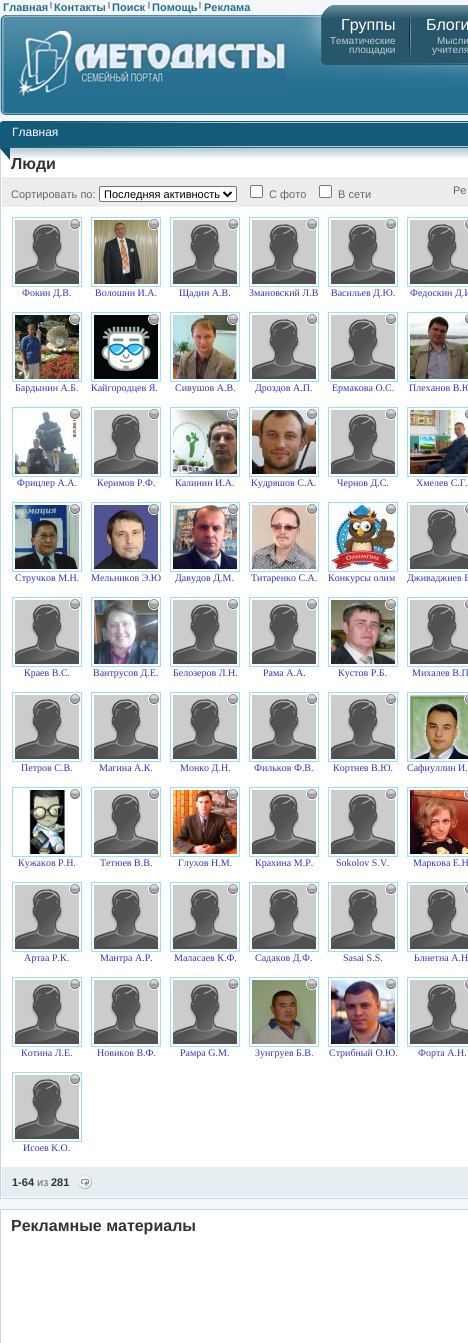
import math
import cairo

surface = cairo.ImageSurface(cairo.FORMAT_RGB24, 468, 1343)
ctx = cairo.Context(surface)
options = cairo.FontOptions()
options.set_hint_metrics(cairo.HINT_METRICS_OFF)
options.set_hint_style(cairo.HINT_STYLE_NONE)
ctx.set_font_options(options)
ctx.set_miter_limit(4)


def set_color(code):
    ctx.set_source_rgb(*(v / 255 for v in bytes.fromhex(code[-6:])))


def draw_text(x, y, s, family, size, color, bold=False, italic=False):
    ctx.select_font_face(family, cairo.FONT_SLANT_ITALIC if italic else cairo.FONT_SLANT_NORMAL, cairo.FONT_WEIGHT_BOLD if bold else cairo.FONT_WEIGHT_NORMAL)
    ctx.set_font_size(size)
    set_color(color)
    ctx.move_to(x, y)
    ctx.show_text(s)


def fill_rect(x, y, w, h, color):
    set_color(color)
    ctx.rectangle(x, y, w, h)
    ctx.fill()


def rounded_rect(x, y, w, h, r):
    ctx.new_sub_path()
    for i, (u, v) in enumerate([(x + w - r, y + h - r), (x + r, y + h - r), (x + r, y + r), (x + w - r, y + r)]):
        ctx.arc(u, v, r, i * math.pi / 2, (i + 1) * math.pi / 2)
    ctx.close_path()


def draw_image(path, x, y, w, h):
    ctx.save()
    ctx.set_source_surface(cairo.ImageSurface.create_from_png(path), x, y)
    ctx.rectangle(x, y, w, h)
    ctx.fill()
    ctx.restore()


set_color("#f4f7fa")
ctx.paint()
draw_image("assets/img1.png", 0, 15, 468, 100)
draw_text(3, 11, "Главная", "Liberation Sans", 11, "#257090", bold=True)
draw_text(50, 7, "|", "Liberation Sans", 7, "#28576b", bold=True)
draw_text(54, 11, "Контакты", "Liberation Sans", 11, "#257090", bold=True)
draw_text(108, 7, "|", "Liberation Sans", 7, "#28576b", bold=True)
draw_text(112, 11, "Поиск", "Liberation Sans", 11, "#257090", bold=True)
draw_text(148, 7, "|", "Liberation Sans", 7, "#28576b", bold=True)
draw_text(152, 11, "Помощь", "Liberation Sans", 11, "#257090", bold=True)
draw_text(199, 7, "|", "Liberation Sans", 7, "#28576b", bold=True)
draw_text(204, 11, "Реклама", "Liberation Sans", 11, "#257090", bold=True)
draw_image("assets/img2.png", 17, 31, 271, 66)
draw_image("assets/img3.png", 321, 5, 147, 60)
draw_image("assets/img4.png", 409, 12, 2, 47)
draw_text(341, 30, "Группы", "Liberation Sans", 16, "#ffffff")
draw_text(330, 44, "Тематические", "Liberation Sans", 10, "#bfcdd3")
draw_text(349, 53, "площадки", "Liberation Sans", 10, "#bfcdd3")
draw_text(426, 30, "Блоги", "Liberation Sans", 16, "#ffffff")
draw_text(437, 44, "Мысли", "Liberation Sans", 10, "#bfcdd3")
draw_text(432, 53, "учителя", "Liberation Sans", 10, "#bfcdd3")
set_color("#ffffff")
ctx.rectangle(0.5, 147.5, 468, 1051)
ctx.fill_preserve()
set_color("#bfdbe7")
ctx.set_line_width(1)
ctx.stroke()
draw_text(11, 169, "Люди", "Liberation Sans", 16, "#333333", bold=True)
draw_image("assets/img5.png", 0, 121, 468, 39)
draw_text(12, 136, "Главная", "Liberation Sans", 12, "#ffffff")
fill_rect(2, 177, 466, 30, "#ededed")
draw_text(11, 198, "Сортировать по:", "Liberation Sans", 11, "#666666")
set_color("#ffffff")
rounded_rect(99.5, 186.5, 137, 15, 1.5)
ctx.fill_preserve()
set_color("#767676")
ctx.stroke()
ctx.new_path()
ctx.move_to(223.5, 192)
ctx.line_to(227.5, 196)
ctx.line_to(231.5, 192)
set_color("#000000")
ctx.set_line_width(2)
ctx.stroke()
draw_text(104, 198, "Последняя активность", "Liberation Sans", 11, "#000000")
set_color("#ffffff")
rounded_rect(250.5, 185.5, 12, 12, 1.5)
ctx.fill_preserve()
set_color("#767676")
ctx.set_line_width(1)
ctx.stroke()
draw_text(269, 198, "С фото", "Liberation Sans", 11, "#666666")
set_color("#ffffff")
rounded_rect(319.5, 185.5, 12, 12, 1.5)
ctx.fill_preserve()
set_color("#767676")
ctx.stroke()
draw_text(338, 198, "В сети", "Liberation Sans", 11, "#666666")
draw_text(453, 194, "Ре", "Liberation Sans", 11, "#666666")
ctx.rectangle(12.5, 217.5, 69, 69)
set_color("#95dfff")
ctx.stroke()
draw_image("assets/img7.png", 15, 220, 64, 64)
draw_image("assets/img6.png", 69, 219, 11, 11)
draw_text(22, 296, "Фокин Д.В.", "Liberation Serif", 10, "#3333cc")
ctx.rectangle(91.5, 217.5, 69, 69)
set_color("#95dfff")
ctx.stroke()
draw_image("assets/img9.png", 94, 220, 64, 64)
draw_image("assets/img8.png", 148, 219, 11, 11)
draw_text(95, 296, "Волошин И.А.", "Liberation Serif", 10, "#3333cc")
ctx.rectangle(170.5, 217.5, 69, 69)
set_color("#95dfff")
ctx.stroke()
draw_image("assets/img7.png", 173, 220, 64, 64)
draw_image("assets/img6.png", 227, 219, 11, 11)
draw_text(179, 296, "Щадин А.В.", "Liberation Serif", 10, "#3333cc")
ctx.rectangle(249.5, 217.5, 69, 69)
set_color("#95dfff")
ctx.stroke()
draw_image("assets/img7.png", 252, 220, 64, 64)
draw_image("assets/img6.png", 306, 219, 11, 11)
draw_text(249, 296, "Змановский Л.В", "Liberation Serif", 10, "#3333cc")
ctx.rectangle(328.5, 217.5, 69, 69)
set_color("#95dfff")
ctx.stroke()
draw_image("assets/img7.png", 331, 220, 64, 64)
draw_image("assets/img6.png", 385, 219, 11, 11)
draw_text(331, 296, "Васильев Д.Ю.", "Liberation Serif", 10, "#3333cc")
ctx.rectangle(407.5, 217.5, 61, 69)
set_color("#95dfff")
ctx.stroke()
draw_image("assets/img11.png", 410, 220, 58, 64)
draw_image("assets/img10.png", 464, 219, 4, 11)
draw_text(410, 296, "Федоскин Д.И", "Liberation Serif", 10, "#3333cc")
ctx.rectangle(12.5, 312.5, 69, 69)
set_color("#95dfff")
ctx.stroke()
draw_image("assets/img13.png", 15, 315, 64, 64)
draw_image("assets/img12.png", 69, 314, 11, 11)
draw_text(15, 391, "Бардынин А.Б.", "Liberation Serif", 10, "#3333cc")
ctx.rectangle(91.5, 312.5, 69, 69)
set_color("#95dfff")
ctx.stroke()
draw_image("assets/img15.png", 94, 315, 64, 64)
draw_image("assets/img14.png", 148, 314, 11, 11)
draw_text(91, 391, "Кайгородцев Я.", "Liberation Serif", 10, "#3333cc")
ctx.rectangle(170.5, 312.5, 69, 69)
set_color("#95dfff")
ctx.stroke()
draw_image("assets/img17.png", 173, 315, 64, 64)
draw_image("assets/img16.png", 227, 314, 11, 11)
draw_text(175, 391, "Сивушов А.В.", "Liberation Serif", 10, "#3333cc")
ctx.rectangle(249.5, 312.5, 69, 69)
set_color("#95dfff")
ctx.stroke()
draw_image("assets/img7.png", 252, 315, 64, 64)
draw_image("assets/img6.png", 306, 314, 11, 11)
draw_text(255, 391, "Дроздов А.П.", "Liberation Serif", 10, "#3333cc")
ctx.rectangle(328.5, 312.5, 69, 69)
set_color("#95dfff")
ctx.stroke()
draw_image("assets/img7.png", 331, 315, 64, 64)
draw_image("assets/img6.png", 385, 314, 11, 11)
draw_text(332, 391, "Ермакова О.С.", "Liberation Serif", 10, "#3333cc")
ctx.rectangle(407.5, 312.5, 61, 69)
set_color("#95dfff")
ctx.stroke()
draw_image("assets/img19.png", 410, 315, 58, 64)
draw_image("assets/img18.png", 464, 314, 4, 11)
draw_text(409, 391, "Плеханов В.Ю", "Liberation Serif", 10, "#3333cc")
ctx.rectangle(12.5, 407.5, 69, 69)
set_color("#95dfff")
ctx.stroke()
draw_image("assets/img21.png", 15, 410, 64, 64)
draw_image("assets/img20.png", 70, 409, 10, 11)
draw_text(17, 486, "Фрицлер А.А.", "Liberation Serif", 10, "#3333cc")
ctx.rectangle(91.5, 407.5, 69, 69)
set_color("#95dfff")
ctx.stroke()
draw_image("assets/img7.png", 94, 410, 64, 64)
draw_image("assets/img6.png", 148, 409, 11, 11)
draw_text(97, 486, "Керимов Р.Ф.", "Liberation Serif", 10, "#3333cc")
ctx.rectangle(170.5, 407.5, 69, 69)
set_color("#95dfff")
ctx.stroke()
draw_image("assets/img23.png", 173, 410, 64, 64)
draw_image("assets/img22.png", 227, 409, 11, 11)
draw_text(175, 486, "Калинин И.А.", "Liberation Serif", 10, "#3333cc")
ctx.rectangle(249.5, 407.5, 69, 69)
set_color("#95dfff")
ctx.stroke()
draw_image("assets/img25.png", 252, 410, 64, 64)
draw_image("assets/img24.png", 306, 409, 11, 11)
draw_text(251, 486, "Кудряшов С.А.", "Liberation Serif", 10, "#3333cc")
ctx.rectangle(328.5, 407.5, 69, 69)
set_color("#95dfff")
ctx.stroke()
draw_image("assets/img7.png", 331, 410, 64, 64)
draw_image("assets/img6.png", 385, 409, 11, 11)
draw_text(337, 486, "Чернов Д.С.", "Liberation Serif", 10, "#3333cc")
ctx.rectangle(407.5, 407.5, 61, 69)
set_color("#95dfff")
ctx.stroke()
draw_image("assets/img27.png", 410, 410, 58, 64)
draw_image("assets/img26.png", 464, 409, 4, 10)
draw_text(416, 486, "Хмелев С.Г.", "Liberation Serif", 10, "#3333cc")
ctx.rectangle(12.5, 502.5, 69, 69)
set_color("#95dfff")
ctx.stroke()
draw_image("assets/img29.png", 15, 505, 64, 64)
draw_image("assets/img28.png", 69, 504, 11, 11)
draw_text(15, 581, "Стручков М.Н.", "Liberation Serif", 10, "#3333cc")
ctx.rectangle(91.5, 502.5, 69, 69)
set_color("#95dfff")
ctx.stroke()
draw_image("assets/img31.png", 94, 505, 64, 64)
draw_image("assets/img30.png", 148, 504, 11, 11)
draw_text(91, 581, "Мельников Э.Ю", "Liberation Serif", 10, "#3333cc")
ctx.rectangle(170.5, 502.5, 69, 69)
set_color("#95dfff")
ctx.stroke()
draw_image("assets/img33.png", 173, 505, 64, 64)
draw_image("assets/img32.png", 227, 504, 11, 11)
draw_text(175, 581, "Давудов Д.М.", "Liberation Serif", 10, "#3333cc")
ctx.rectangle(249.5, 502.5, 69, 69)
set_color("#95dfff")
ctx.stroke()
draw_image("assets/img35.png", 252, 505, 64, 64)
draw_image("assets/img34.png", 306, 504, 11, 11)
draw_text(251, 581, "Титаренко С.А.", "Liberation Serif", 10, "#3333cc")
ctx.rectangle(328.5, 502.5, 69, 69)
set_color("#95dfff")
ctx.stroke()
draw_image("assets/img37.png", 331, 505, 64, 64)
draw_image("assets/img36.png", 386, 504, 10, 10)
draw_text(328, 581, "Конкурсы олим", "Liberation Serif", 10, "#3333cc")
ctx.rectangle(407.5, 502.5, 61, 69)
set_color("#95dfff")
ctx.stroke()
draw_image("assets/img11.png", 410, 505, 58, 64)
draw_image("assets/img10.png", 464, 504, 4, 11)
draw_text(407, 581, "Дживаджиев В", "Liberation Serif", 10, "#3333cc")
ctx.rectangle(12.5, 597.5, 69, 69)
set_color("#95dfff")
ctx.stroke()
draw_image("assets/img7.png", 15, 600, 64, 64)
draw_image("assets/img6.png", 69, 599, 11, 11)
draw_text(24, 676, "Краев В.С.", "Liberation Serif", 10, "#3333cc")
ctx.rectangle(91.5, 597.5, 69, 69)
set_color("#95dfff")
ctx.stroke()
draw_image("assets/img39.png", 94, 600, 64, 64)
draw_image("assets/img38.png", 148, 599, 11, 11)
draw_text(93, 676, "Вантрусов Д.Е.", "Liberation Serif", 10, "#3333cc")
ctx.rectangle(170.5, 597.5, 69, 69)
set_color("#95dfff")
ctx.stroke()
draw_image("assets/img7.png", 173, 600, 64, 64)
draw_image("assets/img6.png", 227, 599, 11, 11)
draw_text(173, 676, "Белозеров Л.Н.", "Liberation Serif", 10, "#3333cc")
ctx.rectangle(249.5, 597.5, 69, 69)
set_color("#95dfff")
ctx.stroke()
draw_image("assets/img7.png", 252, 600, 64, 64)
draw_image("assets/img6.png", 306, 599, 11, 11)
draw_text(263, 676, "Рама А.А.", "Liberation Serif", 10, "#3333cc")
ctx.rectangle(328.5, 597.5, 69, 69)
set_color("#95dfff")
ctx.stroke()
draw_image("assets/img41.png", 331, 600, 64, 64)
draw_image("assets/img40.png", 385, 599, 11, 11)
draw_text(338, 676, "Кустов Р.Б.", "Liberation Serif", 10, "#3333cc")
ctx.rectangle(407.5, 597.5, 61, 69)
set_color("#95dfff")
ctx.stroke()
draw_image("assets/img11.png", 410, 600, 58, 64)
draw_image("assets/img10.png", 464, 599, 4, 11)
draw_text(412, 676, "Михалев В.П", "Liberation Serif", 10, "#3333cc")
ctx.rectangle(12.5, 692.5, 69, 69)
set_color("#95dfff")
ctx.stroke()
draw_image("assets/img7.png", 15, 695, 64, 64)
draw_image("assets/img6.png", 69, 694, 11, 11)
draw_text(21, 771, "Петров С.В.", "Liberation Serif", 10, "#3333cc")
ctx.rectangle(91.5, 692.5, 69, 69)
set_color("#95dfff")
ctx.stroke()
draw_image("assets/img7.png", 94, 695, 64, 64)
draw_image("assets/img6.png", 148, 694, 11, 11)
draw_text(99, 771, "Магина А.К.", "Liberation Serif", 10, "#3333cc")
ctx.rectangle(170.5, 692.5, 69, 69)
set_color("#95dfff")
ctx.stroke()
draw_image("assets/img7.png", 173, 695, 64, 64)
draw_image("assets/img6.png", 227, 694, 11, 11)
draw_text(180, 771, "Монко Д.Н.", "Liberation Serif", 10, "#3333cc")
ctx.rectangle(249.5, 692.5, 69, 69)
set_color("#95dfff")
ctx.stroke()
draw_image("assets/img7.png", 252, 695, 64, 64)
draw_image("assets/img6.png", 306, 694, 11, 11)
draw_text(254, 771, "Фильков Ф.В.", "Liberation Serif", 10, "#3333cc")
ctx.rectangle(328.5, 692.5, 69, 69)
set_color("#95dfff")
ctx.stroke()
draw_image("assets/img7.png", 331, 695, 64, 64)
draw_image("assets/img6.png", 385, 694, 11, 11)
draw_text(333, 771, "Кортнев В.Ю.", "Liberation Serif", 10, "#3333cc")
ctx.rectangle(407.5, 692.5, 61, 69)
set_color("#95dfff")
ctx.stroke()
draw_image("assets/img43.png", 410, 695, 58, 64)
draw_image("assets/img42.png", 464, 694, 4, 11)
draw_text(407, 771, "Сафиуллин И.", "Liberation Serif", 10, "#3333cc")
ctx.rectangle(12.5, 787.5, 69, 69)
set_color("#95dfff")
ctx.stroke()
draw_image("assets/img45.png", 15, 790, 64, 64)
draw_image("assets/img44.png", 70, 789, 10, 10)
draw_text(18, 866, "Кужаков Р.Н.", "Liberation Serif", 10, "#3333cc")
ctx.rectangle(91.5, 787.5, 69, 69)
set_color("#95dfff")
ctx.stroke()
draw_image("assets/img7.png", 94, 790, 64, 64)
draw_image("assets/img6.png", 148, 789, 11, 11)
draw_text(100, 866, "Тетюев В.В.", "Liberation Serif", 10, "#3333cc")
ctx.rectangle(170.5, 787.5, 69, 69)
set_color("#95dfff")
ctx.stroke()
draw_image("assets/img47.png", 173, 790, 64, 64)
draw_image("assets/img46.png", 227, 789, 11, 11)
draw_text(178, 866, "Глухов Н.М.", "Liberation Serif", 10, "#3333cc")
ctx.rectangle(249.5, 787.5, 69, 69)
set_color("#95dfff")
ctx.stroke()
draw_image("assets/img7.png", 252, 790, 64, 64)
draw_image("assets/img6.png", 306, 789, 11, 11)
draw_text(255, 866, "Крахина М.Р.", "Liberation Serif", 10, "#3333cc")
ctx.rectangle(328.5, 787.5, 69, 69)
set_color("#95dfff")
ctx.stroke()
draw_image("assets/img7.png", 331, 790, 64, 64)
draw_image("assets/img6.png", 385, 789, 11, 11)
draw_text(336, 866, "Sokolov S.V.", "Liberation Serif", 10, "#3333cc")
ctx.rectangle(407.5, 787.5, 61, 69)
set_color("#95dfff")
ctx.stroke()
draw_image("assets/img49.png", 410, 790, 58, 64)
draw_image("assets/img48.png", 464, 789, 4, 11)
draw_text(413, 866, "Маркова Е.Н", "Liberation Serif", 10, "#3333cc")
ctx.rectangle(12.5, 882.5, 69, 69)
set_color("#95dfff")
ctx.stroke()
draw_image("assets/img7.png", 15, 885, 64, 64)
draw_image("assets/img6.png", 69, 884, 11, 11)
draw_text(24, 961, "Артаа Р.К.", "Liberation Serif", 10, "#3333cc")
ctx.rectangle(91.5, 882.5, 69, 69)
set_color("#95dfff")
ctx.stroke()
draw_image("assets/img7.png", 94, 885, 64, 64)
draw_image("assets/img6.png", 148, 884, 11, 11)
draw_text(100, 961, "Мантра А.Р.", "Liberation Serif", 10, "#3333cc")
ctx.rectangle(170.5, 882.5, 69, 69)
set_color("#95dfff")
ctx.stroke()
draw_image("assets/img7.png", 173, 885, 64, 64)
draw_image("assets/img6.png", 227, 884, 11, 11)
draw_text(174, 961, "Маласаев К.Ф.", "Liberation Serif", 10, "#3333cc")
ctx.rectangle(249.5, 882.5, 69, 69)
set_color("#95dfff")
ctx.stroke()
draw_image("assets/img7.png", 252, 885, 64, 64)
draw_image("assets/img6.png", 306, 884, 11, 11)
draw_text(255, 961, "Садаков Д.Ф.", "Liberation Serif", 10, "#3333cc")
ctx.rectangle(328.5, 882.5, 69, 69)
set_color("#95dfff")
ctx.stroke()
draw_image("assets/img7.png", 331, 885, 64, 64)
draw_image("assets/img6.png", 385, 884, 11, 11)
draw_text(343, 961, "Sasai S.S.", "Liberation Serif", 10, "#3333cc")
ctx.rectangle(407.5, 882.5, 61, 69)
set_color("#95dfff")
ctx.stroke()
draw_image("assets/img11.png", 410, 885, 58, 64)
draw_image("assets/img10.png", 464, 884, 4, 11)
draw_text(414, 961, "Ьлнетна A.Н", "Liberation Serif", 10, "#3333cc")
ctx.rectangle(12.5, 977.5, 69, 69)
set_color("#95dfff")
ctx.stroke()
draw_image("assets/img7.png", 15, 980, 64, 64)
draw_image("assets/img6.png", 69, 979, 11, 11)
draw_text(21, 1056, "Котина Л.Е.", "Liberation Serif", 10, "#3333cc")
ctx.rectangle(91.5, 977.5, 69, 69)
set_color("#95dfff")
ctx.stroke()
draw_image("assets/img7.png", 94, 980, 64, 64)
draw_image("assets/img6.png", 148, 979, 11, 11)
draw_text(97, 1056, "Новиков В.Ф.", "Liberation Serif", 10, "#3333cc")
ctx.rectangle(170.5, 977.5, 69, 69)
set_color("#95dfff")
ctx.stroke()
draw_image("assets/img7.png", 173, 980, 64, 64)
draw_image("assets/img6.png", 227, 979, 11, 11)
draw_text(180, 1056, "Рамра G.М.", "Liberation Serif", 10, "#3333cc")
ctx.rectangle(249.5, 977.5, 69, 69)
set_color("#95dfff")
ctx.stroke()
draw_image("assets/img51.png", 252, 980, 64, 64)
draw_image("assets/img50.png", 306, 979, 11, 11)
draw_text(255, 1056, "Зунгруев Б.В.", "Liberation Serif", 10, "#3333cc")
ctx.rectangle(328.5, 977.5, 69, 69)
set_color("#95dfff")
ctx.stroke()
draw_image("assets/img53.png", 331, 980, 64, 64)
draw_image("assets/img52.png", 385, 979, 11, 11)
draw_text(329, 1056, "Стрибный О.Ю.", "Liberation Serif", 10, "#3333cc")
ctx.rectangle(407.5, 977.5, 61, 69)
set_color("#95dfff")
ctx.stroke()
draw_image("assets/img11.png", 410, 980, 58, 64)
draw_image("assets/img10.png", 464, 979, 4, 11)
draw_text(418, 1056, "Форта А.Н.", "Liberation Serif", 10, "#3333cc")
ctx.rectangle(12.5, 1072.5, 69, 69)
set_color("#95dfff")
ctx.stroke()
draw_image("assets/img7.png", 15, 1075, 64, 64)
draw_image("assets/img6.png", 69, 1074, 11, 11)
draw_text(23, 1151, "Исоев К.О.", "Liberation Serif", 10, "#3333cc")
fill_rect(2, 1167, 466, 30, "#e6eef1")
draw_text(12, 1186, "1-64", "Liberation Sans", 11, "#333333", bold=True)
draw_text(37, 1186, "из", "Liberation Sans", 11, "#666666")
draw_text(51, 1186, "281", "Liberation Sans", 11, "#333333", bold=True)
draw_image("assets/img54.png", 78, 1175, 14, 14)
set_color("#ffffff")
ctx.rectangle(0.5, 1209.5, 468, 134)
ctx.fill_preserve()
set_color("#bfdbe7")
ctx.stroke()
draw_text(11, 1231, "Рекламные материалы", "Liberation Sans", 16, "#333333", bold=True)
surface.write_to_png("output.png")
